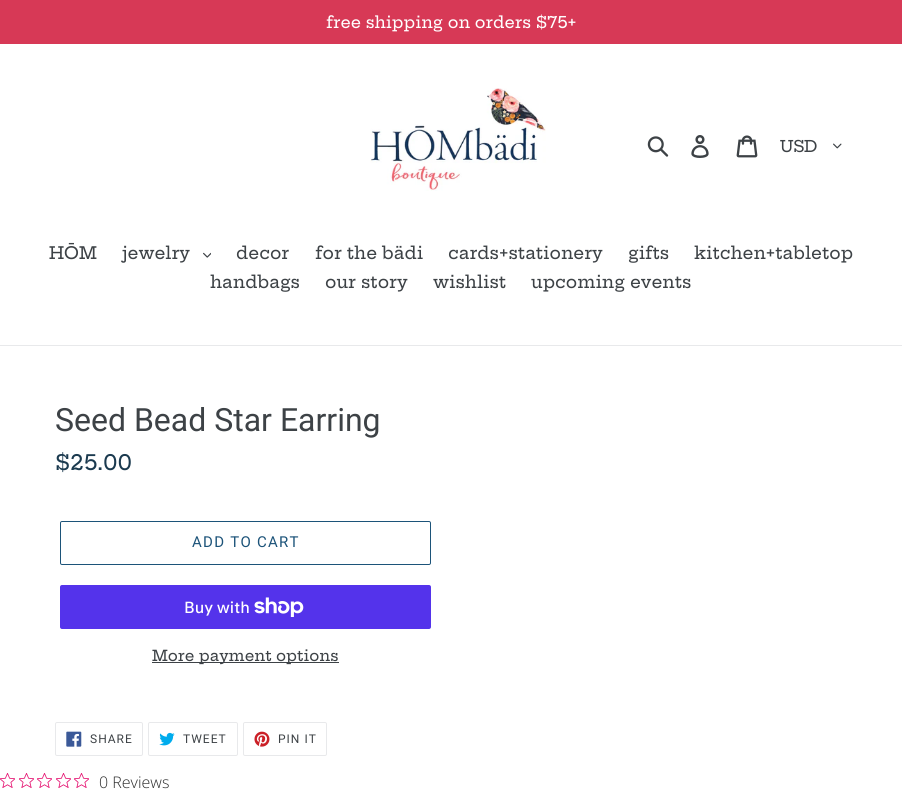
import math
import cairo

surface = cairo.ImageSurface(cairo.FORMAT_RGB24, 902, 795)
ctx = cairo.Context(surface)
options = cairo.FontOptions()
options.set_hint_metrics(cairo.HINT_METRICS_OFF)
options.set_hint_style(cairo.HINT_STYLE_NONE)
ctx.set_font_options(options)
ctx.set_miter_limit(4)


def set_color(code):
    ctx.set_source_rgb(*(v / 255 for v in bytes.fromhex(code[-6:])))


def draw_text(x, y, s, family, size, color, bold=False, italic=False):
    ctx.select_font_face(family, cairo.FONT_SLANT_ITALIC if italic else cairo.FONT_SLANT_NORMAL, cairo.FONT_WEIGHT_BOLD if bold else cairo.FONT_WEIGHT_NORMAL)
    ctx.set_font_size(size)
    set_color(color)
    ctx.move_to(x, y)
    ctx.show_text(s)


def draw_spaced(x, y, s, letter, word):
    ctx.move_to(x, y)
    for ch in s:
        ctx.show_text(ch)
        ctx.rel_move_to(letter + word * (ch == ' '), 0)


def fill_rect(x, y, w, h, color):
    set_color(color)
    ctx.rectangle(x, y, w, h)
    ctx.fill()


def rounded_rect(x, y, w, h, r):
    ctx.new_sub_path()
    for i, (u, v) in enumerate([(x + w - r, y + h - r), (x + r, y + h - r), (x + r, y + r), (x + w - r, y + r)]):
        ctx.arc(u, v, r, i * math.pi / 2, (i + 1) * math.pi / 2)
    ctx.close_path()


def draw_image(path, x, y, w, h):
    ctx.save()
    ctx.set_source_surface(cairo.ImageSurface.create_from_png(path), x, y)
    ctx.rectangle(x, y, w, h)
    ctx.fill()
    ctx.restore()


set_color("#ffffff")
ctx.paint()
fill_rect(0, 0, 902, 44, "#d73956")
draw_text(326, 28, "free shipping on orders $75+", "Hepta Slab Medium", 16, "#ffffff")
draw_image("assets/img1.png", 370, 88, 176, 103)
draw_image("assets/img2.png", 647, 136, 22, 21)
draw_image("assets/img3.png", 691, 135, 18, 23)
draw_image("assets/img4.png", 736, 135, 22, 23)
draw_text(780, 152, "USD", "Hepta Slab Medium", 16, "#3d4246")
draw_image("assets/img5.png", 833, 143, 9, 6)
fill_rect(0, 345, 902, 1, "#e8e9eb")
draw_text(49, 259, "HŌM", "Hepta Slab Medium", 17, "#3d4246")
draw_text(122, 259, "jewelry", "Hepta Slab Medium", 17, "#3d4246")
draw_image("assets/img6.png", 203, 252, 8, 6)
draw_text(236, 259, "decor", "Hepta Slab Medium", 17, "#3d4246")
draw_text(315, 259, "for the bädi", "Hepta Slab Medium", 17, "#3d4246")
draw_text(448, 259, "cards+stationery", "Hepta Slab Medium", 17, "#3d4246")
draw_text(628, 259, "gifts", "Hepta Slab Medium", 17, "#3d4246")
draw_text(694, 259, "kitchen+tabletop", "Hepta Slab Medium", 17, "#3d4246")
draw_text(210, 288, "handbags", "Hepta Slab Medium", 17, "#3d4246")
draw_text(325, 288, "our story", "Hepta Slab Medium", 17, "#3d4246")
draw_text(433, 288, "wishlist", "Hepta Slab Medium", 17, "#3d4246")
draw_text(531, 288, "upcoming events", "Hepta Slab Medium", 17, "#3d4246")
draw_text(55, 431, "Seed Bead Star Earring", "Roboto", 32, "#3d4246")
draw_text(55, 470, "$25.00", "Hepta Slab Medium", 21, "#1b3a4f")
rounded_rect(60.5, 521.5, 370, 43, 1.5)
set_color("#1c5379")
ctx.set_line_width(1)
ctx.stroke()
ctx.select_font_face("Roboto")
ctx.set_font_size(15)
draw_spaced(192, 547, "ADD TO CART", 1.25, 0)
set_color("#5433eb")
rounded_rect(60, 585, 371, 44, 2)
ctx.fill()
draw_text(184, 613, "Buy with", "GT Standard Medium", 16, "#ffffff")
draw_image("assets/img7.png", 254, 597, 50, 20)
fill_rect(152, 662, 187, 1, "#3d4246")
draw_text(152, 661, "More payment options", "Hepta Slab Medium", 15, "#3d4246")
rounded_rect(55.5, 722.5, 87, 33, 1.5)
set_color("#e8e9eb")
ctx.stroke()
draw_image("assets/img8.png", 66, 731, 16, 16)
ctx.select_font_face("Roboto")
ctx.set_font_size(12)
set_color("#3d4246")
draw_spaced(90, 743, "SHARE", 1, 0)
rounded_rect(148.5, 722.5, 89, 33, 1.5)
set_color("#e8e9eb")
ctx.stroke()
draw_image("assets/img9.png", 159, 732, 16, 14)
set_color("#3d4246")
draw_spaced(183, 743, "TWEET", 1, 0)
rounded_rect(243.5, 722.5, 83, 33, 1.5)
set_color("#e8e9eb")
ctx.stroke()
draw_image("assets/img10.png", 254, 731, 16, 16)
set_color("#3d4246")
draw_spaced(278, 743, "PIN IT", 1, 0)
draw_image("assets/img11.png", 0, 773, 15, 15)
draw_image("assets/img11.png", 19, 773, 15, 15)
draw_image("assets/img11.png", 37, 773, 15, 15)
draw_image("assets/img11.png", 56, 773, 15, 15)
draw_image("assets/img11.png", 74, 773, 15, 15)
draw_text(99, 788, "0 Reviews", "Open Sans Light", 16, "#2c2c2c")
surface.write_to_png("output.png")
